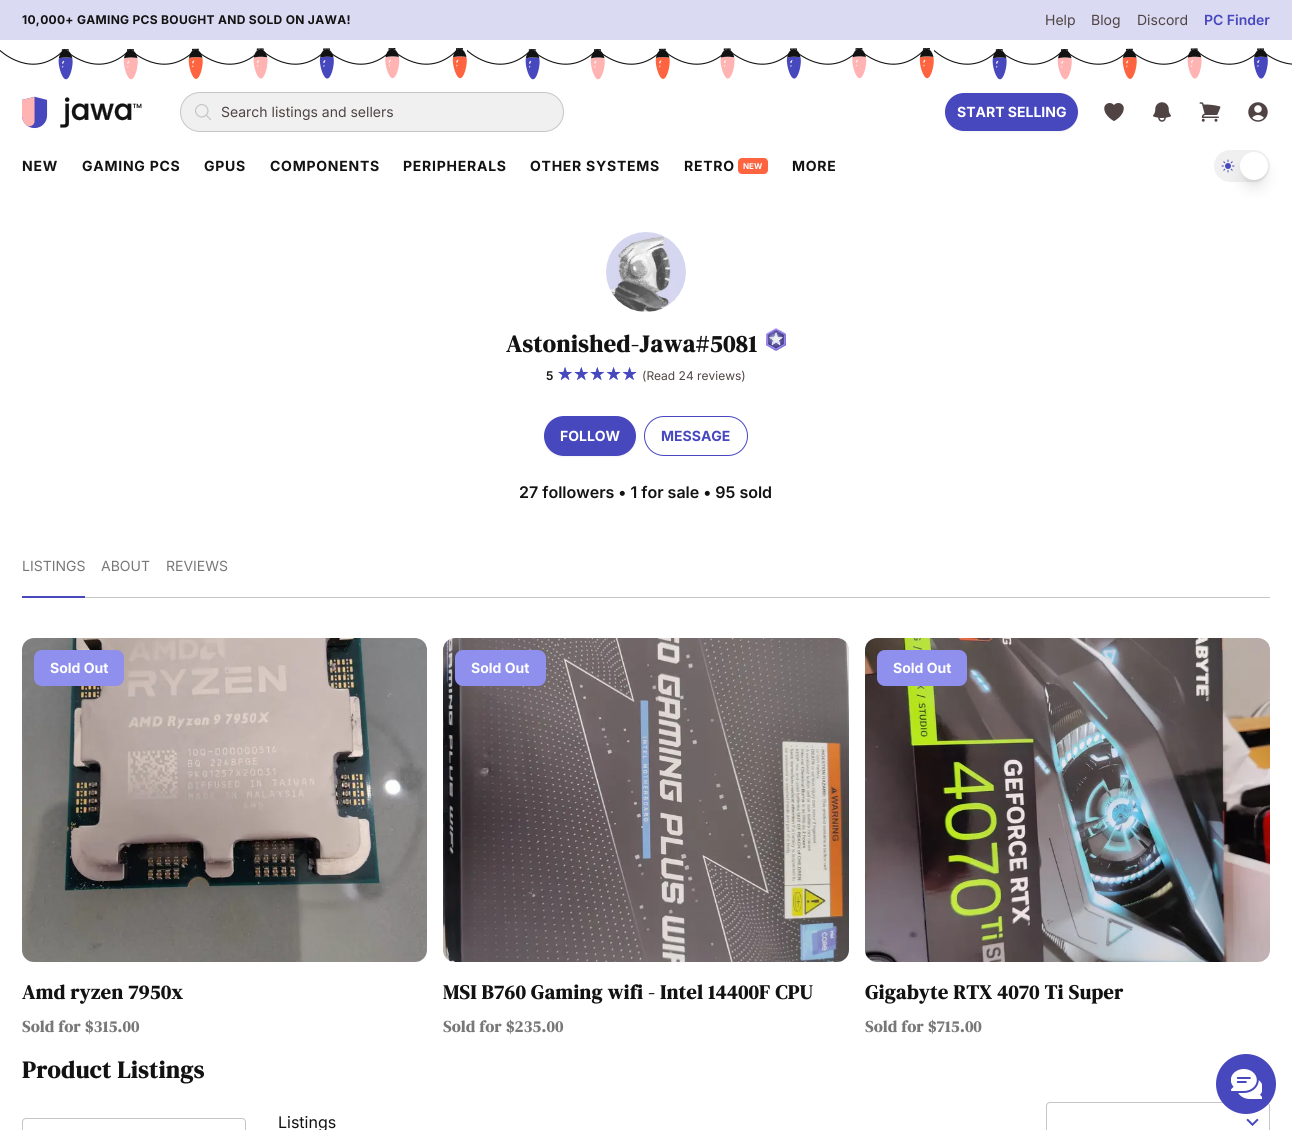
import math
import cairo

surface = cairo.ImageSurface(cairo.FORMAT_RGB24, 1292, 1130)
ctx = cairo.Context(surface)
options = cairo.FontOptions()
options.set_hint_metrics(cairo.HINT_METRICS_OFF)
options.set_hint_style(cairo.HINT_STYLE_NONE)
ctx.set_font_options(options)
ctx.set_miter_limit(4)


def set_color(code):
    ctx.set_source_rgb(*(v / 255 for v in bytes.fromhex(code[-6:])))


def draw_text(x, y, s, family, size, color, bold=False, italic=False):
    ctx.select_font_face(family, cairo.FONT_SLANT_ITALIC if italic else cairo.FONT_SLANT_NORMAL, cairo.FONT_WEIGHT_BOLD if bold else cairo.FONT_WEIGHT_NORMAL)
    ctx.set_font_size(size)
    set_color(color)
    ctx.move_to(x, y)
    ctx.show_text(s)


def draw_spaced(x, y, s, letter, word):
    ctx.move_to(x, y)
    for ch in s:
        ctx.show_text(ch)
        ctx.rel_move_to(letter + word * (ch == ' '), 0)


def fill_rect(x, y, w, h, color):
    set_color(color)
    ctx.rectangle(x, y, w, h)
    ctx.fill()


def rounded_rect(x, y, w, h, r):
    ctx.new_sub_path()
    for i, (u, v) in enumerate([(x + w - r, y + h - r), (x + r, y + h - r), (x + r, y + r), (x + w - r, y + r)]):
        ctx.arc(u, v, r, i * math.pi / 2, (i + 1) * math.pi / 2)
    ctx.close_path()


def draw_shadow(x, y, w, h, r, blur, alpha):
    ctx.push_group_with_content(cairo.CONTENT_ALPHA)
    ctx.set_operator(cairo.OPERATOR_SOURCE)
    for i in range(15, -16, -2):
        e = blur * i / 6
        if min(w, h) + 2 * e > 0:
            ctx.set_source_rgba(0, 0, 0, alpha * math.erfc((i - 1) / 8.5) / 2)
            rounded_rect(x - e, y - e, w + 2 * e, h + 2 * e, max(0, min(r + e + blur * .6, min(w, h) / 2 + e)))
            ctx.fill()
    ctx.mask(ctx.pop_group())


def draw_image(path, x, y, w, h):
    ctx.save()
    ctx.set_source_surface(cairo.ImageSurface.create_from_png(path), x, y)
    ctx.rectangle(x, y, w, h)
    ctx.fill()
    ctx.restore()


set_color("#ffffff")
ctx.paint()
fill_rect(0, 0, 1292, 40, "#dadaf2")
ctx.select_font_face("Inter", cairo.FONT_SLANT_NORMAL, cairo.FONT_WEIGHT_BOLD)
ctx.set_font_size(12)
set_color("#121212")
draw_spaced(22, 24, "10,000+ GAMING PCS BOUGHT AND SOLD ON JAWA!", 0.3, 0)
draw_text(1045, 25, "Help", "Inter", 14, "#504343")
draw_text(1091, 25, "Blog", "Inter", 14, "#504343")
draw_text(1137, 25, "Discord", "Inter", 14, "#504343")
draw_text(1204, 25, "PC Finder", "Inter SemiBold", 14, "#4747be")
draw_image("assets/img1.png", 0, 48, 467, 32)
draw_image("assets/img1.png", 467, 48, 467, 32)
draw_image("assets/img2.png", 934, 48, 358, 32)
draw_image("assets/img3.png", 22, 96, 120, 33)
set_color("#f0f0f0")
rounded_rect(180.5, 92.5, 383, 39, 19.5)
ctx.fill_preserve()
set_color("#c5c5c5")
ctx.set_line_width(1)
ctx.stroke()
ctx.new_path()
ctx.move_to(210.5, 119.5)
ctx.line_to(206, 115)
ctx.move_to(206, 115)
ctx.curve_to(212, 109.5, 203, 100.5, 197.5, 106.5)
ctx.curve_to(191.5, 112, 200.5, 121, 206, 115)
ctx.close_path()
ctx.set_line_width(1.2)
ctx.set_line_cap(cairo.LINE_CAP_ROUND)
ctx.set_line_join(cairo.LINE_JOIN_ROUND)
ctx.stroke()
draw_text(221, 117, "Search listings and sellers", "Inter", 14, "#504343")
set_color("#000000")
draw_shadow(945, 94, 133, 38, 19, 1, 0.05)
set_color("#4747be")
rounded_rect(945, 93, 133, 38, 19)
ctx.fill()
draw_text(957, 117, "START SELLING", "Inter", 14, "#ffffff", bold=True)
draw_image("assets/img4.png", 1104, 103, 20, 18)
draw_image("assets/img5.png", 1153, 102, 18, 20)
draw_image("assets/img6.png", 1199, 102, 22, 20)
draw_image("assets/img7.png", 1248, 102, 20, 20)
set_color("#121212")
draw_spaced(22, 171, "NEW", 0.75, 0)
draw_spaced(82, 171, "GAMING PCS", 0.75, 0)
draw_spaced(204, 171, "GPUS", 0.75, 0)
draw_spaced(270, 171, "COMPONENTS", 0.75, 0)
draw_spaced(403, 171, "PERIPHERALS", 0.75, 0)
draw_spaced(530, 171, "OTHER SYSTEMS", 0.75, 0)
draw_spaced(684, 171, "RETRO", 0.75, 0)
set_color("#fe6440")
rounded_rect(738, 158, 30, 16, 4)
ctx.fill()
draw_text(743, 169, "NEW", "Inter", 8, "#ffffff", bold=True)
ctx.set_font_size(14)
set_color("#121212")
draw_spaced(792, 171, "MORE", 0.75, 0)
set_color("#f0f0f0")
rounded_rect(1214, 150, 56, 32, 16)
ctx.fill()
draw_image("assets/img8.png", 1221, 159, 14, 14)
set_color("#000000")
draw_shadow(1244, 160, 20, 20, 10, 3, 0.1)
draw_shadow(1243, 165, 22, 22, 11, 7.5, 0.1)
set_color("#ffffff")
ctx.arc(1254, 166, 14, 0, 2 * math.pi)
ctx.fill()
draw_image("assets/img9.png", 606, 232, 80, 80)
ctx.select_font_face("DM Serif Display", cairo.FONT_SLANT_NORMAL, cairo.FONT_WEIGHT_BOLD)
ctx.set_font_size(24)
set_color("#121212")
draw_spaced(506, 352, "Astonished-Jawa#5081", 0.6, 0)
draw_image("assets/img10.png", 766, 328, 20, 23)
draw_text(546, 380, "5", "Inter SemiBold", 12, "#121212")
draw_text(557, 380, "☆☆☆☆☆", "DejaVu Sans", 18, "#4747be")
draw_text(557, 380, "★★★★★", "DejaVu Sans", 18, "#4747be")
draw_text(642, 380, "(Read 24 reviews)", "Inter", 12, "#504343")
set_color("#000000")
draw_shadow(544, 417, 92, 40, 20, 1, 0.05)
set_color("#4747be")
rounded_rect(544, 416, 92, 40, 20)
ctx.fill()
draw_text(560, 441, "FOLLOW", "Inter", 14, "#ffffff", bold=True)
rounded_rect(644.5, 416.5, 103, 39, 19.5)
set_color("#4747be")
ctx.set_line_width(1)
ctx.set_line_cap(cairo.LINE_CAP_BUTT)
ctx.set_line_join(cairo.LINE_JOIN_MITER)
ctx.stroke()
draw_text(661, 441, "MESSAGE", "Inter", 14, "#4747be", bold=True)
draw_text(519, 498, "27 followers • 1 for sale • 95 sold", "Inter SemiBold", 16, "#121212")
fill_rect(85, 597, 1185, 1, "#c5c5c5")
fill_rect(22, 596, 63, 2, "#4747be")
draw_text(22, 571, "LISTINGS", "Inter", 14, "#787878")
draw_text(101, 571, "ABOUT", "Inter", 14, "#787878")
draw_text(166, 571, "REVIEWS", "Inter", 14, "#787878")
draw_image("assets/img11.png", 22, 638, 405, 324)
set_color("#8f8fed")
rounded_rect(34, 650, 90, 36, 8)
ctx.fill()
draw_text(50, 673, "Sold Out", "Inter", 14, "#ffffff", bold=True)
ctx.select_font_face("DM Serif Display", cairo.FONT_SLANT_NORMAL, cairo.FONT_WEIGHT_BOLD)
ctx.set_font_size(20)
set_color("#121212")
draw_spaced(22, 999, "Amd ryzen 7950x", 0.5, 0)
ctx.set_font_size(16)
set_color("#787878")
draw_spaced(22, 1032, "Sold for $315.00", 0.4, 0)
draw_image("assets/img12.png", 443, 638, 406, 324)
set_color("#8f8fed")
rounded_rect(455, 650, 91, 36, 8)
ctx.fill()
draw_text(471, 673, "Sold Out", "Inter", 14, "#ffffff", bold=True)
ctx.select_font_face("DM Serif Display", cairo.FONT_SLANT_NORMAL, cairo.FONT_WEIGHT_BOLD)
ctx.set_font_size(20)
set_color("#121212")
draw_spaced(443, 999, "MSI B760 Gaming wifi - Intel 14400F CPU", 0.5, 0)
ctx.set_font_size(16)
set_color("#787878")
draw_spaced(443, 1032, "Sold for $235.00", 0.4, 0)
draw_image("assets/img13.png", 865, 638, 405, 324)
set_color("#8f8fed")
rounded_rect(877, 650, 90, 36, 8)
ctx.fill()
draw_text(893, 673, "Sold Out", "Inter", 14, "#ffffff", bold=True)
ctx.select_font_face("DM Serif Display", cairo.FONT_SLANT_NORMAL, cairo.FONT_WEIGHT_BOLD)
ctx.set_font_size(20)
set_color("#121212")
draw_spaced(865, 999, "Gigabyte RTX 4070 Ti Super", 0.5, 0)
ctx.set_font_size(16)
set_color("#787878")
draw_spaced(865, 1032, "Sold for $715.00", 0.4, 0)
ctx.set_font_size(24)
set_color("#121212")
draw_spaced(22, 1078, "Product Listings", 0.6, 0)
rounded_rect(22.5, 1118.5, 223, 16, 3.5)
set_color("#c5c5c5")
ctx.stroke()
draw_text(278, 1128, "Listings", "Inter", 16, "#121212")
rounded_rect(1046.5, 1102.5, 223, 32, 3.5)
set_color("#c5c5c5")
ctx.stroke()
draw_image("assets/img14.png", 1246, 1118, 13, 8)
set_color("#4747be")
ctx.arc(1246, 1084, 30, 0, 2 * math.pi)
ctx.fill()
draw_image("assets/img15.png", 1231, 1069, 31, 30)
surface.write_to_png("output.png")
